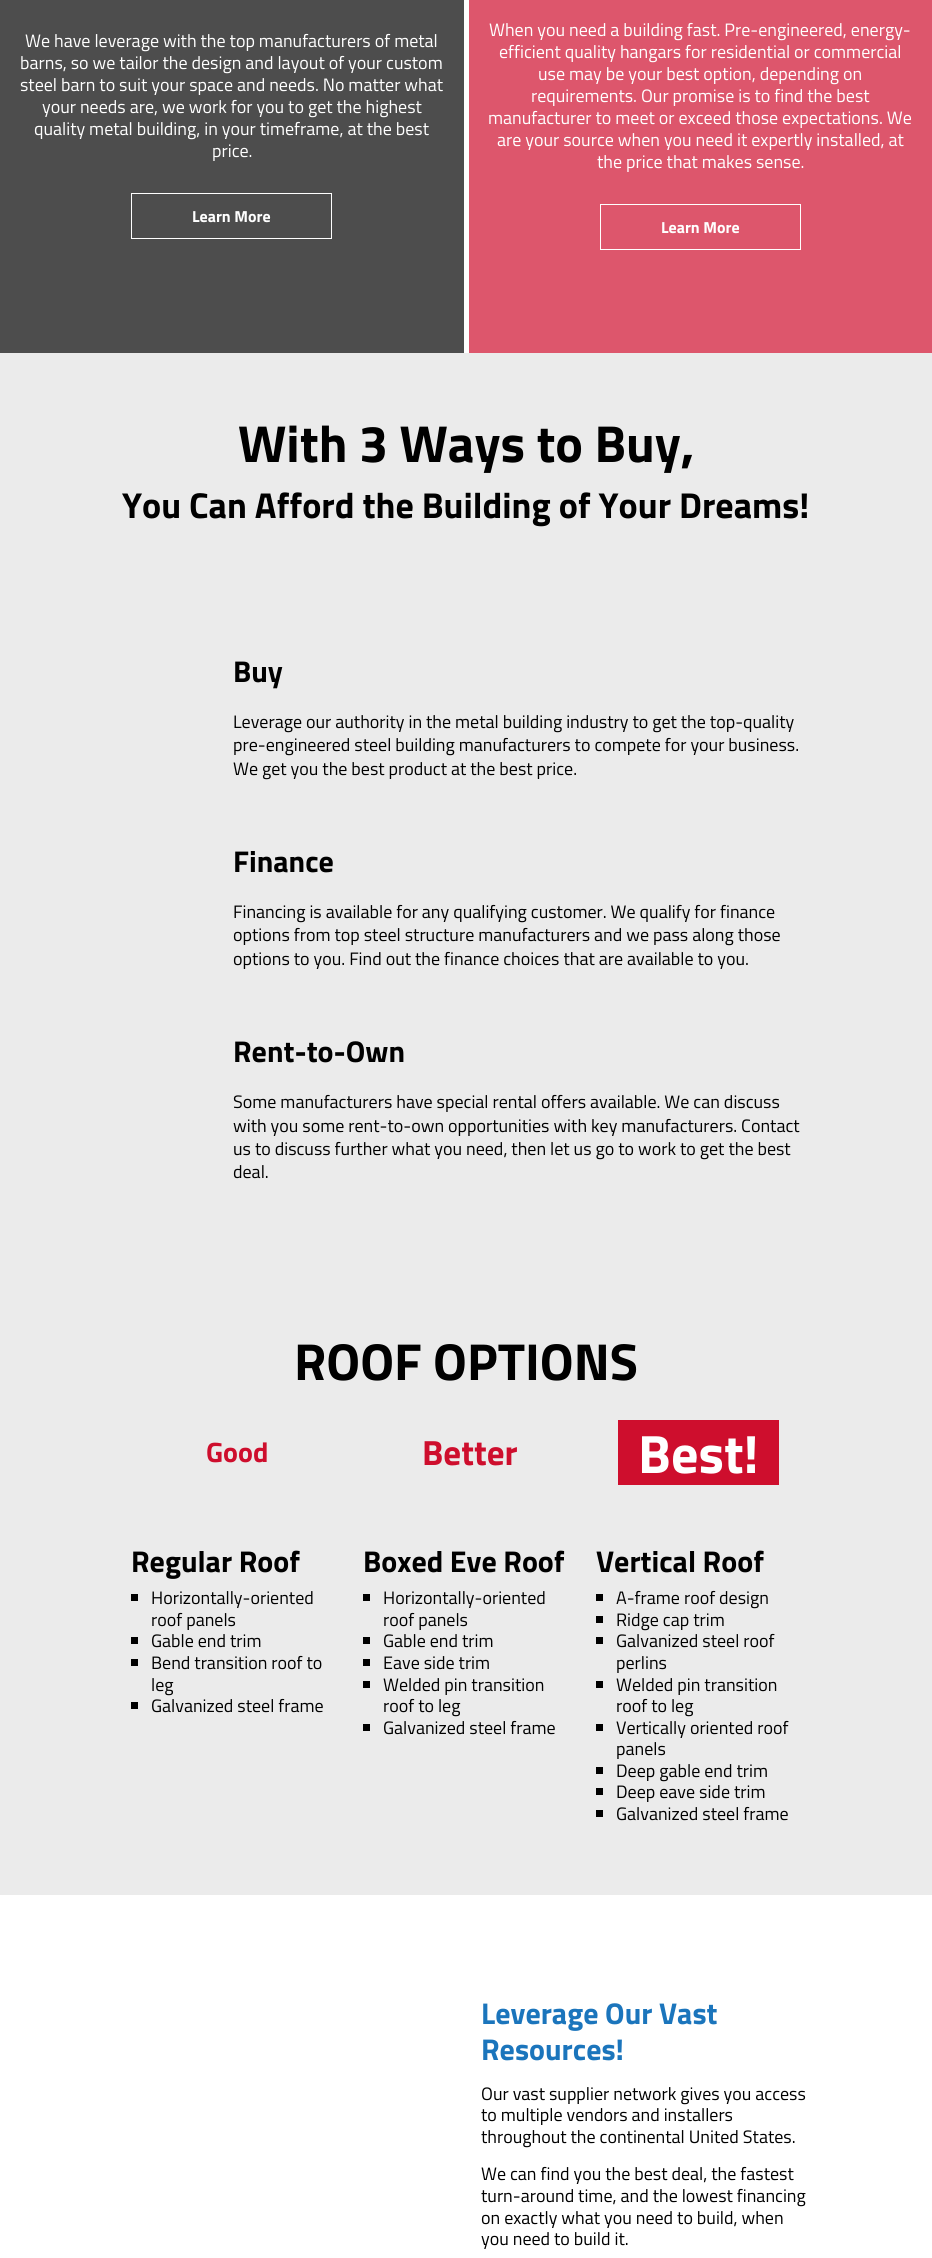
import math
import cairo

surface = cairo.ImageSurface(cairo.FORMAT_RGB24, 932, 2258)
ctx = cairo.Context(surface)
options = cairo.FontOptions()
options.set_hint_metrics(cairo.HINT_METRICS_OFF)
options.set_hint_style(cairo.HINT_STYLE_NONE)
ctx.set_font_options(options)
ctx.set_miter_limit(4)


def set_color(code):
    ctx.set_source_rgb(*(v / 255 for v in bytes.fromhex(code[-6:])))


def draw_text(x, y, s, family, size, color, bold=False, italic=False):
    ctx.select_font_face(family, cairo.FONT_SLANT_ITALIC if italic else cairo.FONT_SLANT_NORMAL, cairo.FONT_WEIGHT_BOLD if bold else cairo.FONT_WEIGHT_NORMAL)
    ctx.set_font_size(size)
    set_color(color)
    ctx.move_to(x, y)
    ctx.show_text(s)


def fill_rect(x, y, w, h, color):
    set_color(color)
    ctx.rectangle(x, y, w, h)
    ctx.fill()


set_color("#ffffff")
ctx.paint()
fill_rect(0, 0, 464, 353, "#4d4d4d")
draw_text(25, 47, "We have leverage with the top manufacturers of metal", "Titillium Web", 18, "#ffffff")
draw_text(20, 69, "barns, so we tailor the design and layout of your custom", "Titillium Web", 18, "#ffffff")
draw_text(20, 91, "steel barn to suit your space and needs. No matter what", "Titillium Web", 18, "#ffffff")
draw_text(42, 113, "your needs are, we work for you to get the highest", "Titillium Web", 18, "#ffffff")
draw_text(34, 135, "quality metal building, in your timeframe, at the best", "Titillium Web", 18, "#ffffff")
draw_text(212, 157, "price.", "Titillium Web", 18, "#ffffff")
ctx.rectangle(131.5, 193.5, 200, 45)
ctx.set_line_width(1)
ctx.stroke()
draw_text(192, 222, "Learn More", "Titillium Web", 16, "#ffffff", bold=True)
fill_rect(469, 0, 463, 353, "#dd566c")
draw_text(489, 36, "When you need a building fast. Pre-engineered, energy-", "Titillium Web", 18, "#ffffff")
draw_text(499, 58, "efficient quality hangars for residential or commercial", "Titillium Web", 18, "#ffffff")
draw_text(538, 80, "use may be your best option, depending on", "Titillium Web", 18, "#ffffff")
draw_text(531, 102, "requirements. Our promise is to find the best", "Titillium Web", 18, "#ffffff")
draw_text(488, 124, "manufacturer to meet or exceed those expectations. We", "Titillium Web", 18, "#ffffff")
draw_text(497, 146, "are your source when you need it expertly installed, at", "Titillium Web", 18, "#ffffff")
draw_text(597, 168, "the price that makes sense.", "Titillium Web", 18, "#ffffff")
ctx.rectangle(600.5, 204.5, 200, 45)
ctx.stroke()
draw_text(661, 233, "Learn More", "Titillium Web", 16, "#ffffff", bold=True)
fill_rect(0, 353, 932, 1542, "#ebebeb")
draw_text(238, 462, "With 3 Ways to Buy,", "Titillium Web", 52, "#000000", bold=True)
draw_text(122, 518, "You Can Afford the Building of Your Dreams!", "Titillium Web", 36, "#000000", bold=True)
draw_text(233, 682, "Buy", "Titillium Web", 30, "#000000", bold=True)
draw_text(233, 728, "Leverage our authority in the metal building industry to get the top-quality", "Titillium Web", 18, "#000000")
draw_text(233, 751, "pre-engineered steel building manufacturers to compete for your business.", "Titillium Web", 18, "#000000")
draw_text(233, 775, "We get you the best product at the best price.", "Titillium Web", 18, "#000000")
draw_text(233, 872, "Finance", "Titillium Web", 30, "#000000", bold=True)
draw_text(233, 918, "Financing is available for any qualifying customer. We qualify for finance", "Titillium Web", 18, "#000000")
draw_text(233, 941, "options from top steel structure manufacturers and we pass along those", "Titillium Web", 18, "#000000")
draw_text(233, 965, "options to you. Find out the finance choices that are available to you.", "Titillium Web", 18, "#000000")
draw_text(233, 1062, "Rent-to-Own", "Titillium Web", 30, "#000000", bold=True)
draw_text(233, 1108, "Some manufacturers have special rental offers available. We can discuss", "Titillium Web", 18, "#000000")
draw_text(233, 1132, "with you some rent-to-own opportunities with key manufacturers. Contact", "Titillium Web", 18, "#000000")
draw_text(233, 1155, "us to discuss further what you need, then let us go to work to get the best", "Titillium Web", 18, "#000000")
draw_text(233, 1178, "deal.", "Titillium Web", 18, "#000000")
draw_text(294, 1380, "ROOF OPTIONS", "Titillium Web", 52, "#000000", bold=True)
draw_text(206, 1462, "Good", "Titillium Web", 28, "#ce0e2d", bold=True)
draw_text(131, 1572, "Regular Roof", "Titillium Web", 30, "#000000", bold=True)
fill_rect(131, 1594, 7, 7, "#000000")
draw_text(151, 1604, "Horizontally-oriented", "Titillium Web", 18, "#000000")
draw_text(151, 1626, "roof panels", "Titillium Web", 18, "#000000")
fill_rect(131, 1637, 7, 7, "#000000")
draw_text(151, 1647, "Gable end trim", "Titillium Web", 18, "#000000")
fill_rect(131, 1659, 7, 7, "#000000")
draw_text(151, 1669, "Bend transition roof to", "Titillium Web", 18, "#000000")
draw_text(151, 1691, "leg", "Titillium Web", 18, "#000000")
fill_rect(131, 1702, 7, 7, "#000000")
draw_text(151, 1712, "Galvanized steel frame", "Titillium Web", 18, "#000000")
draw_text(422, 1465, "Better", "Titillium Web", 35, "#ce0e2d", bold=True)
draw_text(363, 1572, "Boxed Eve Roof", "Titillium Web", 30, "#000000", bold=True)
fill_rect(363, 1594, 7, 7, "#000000")
draw_text(383, 1604, "Horizontally-oriented", "Titillium Web", 18, "#000000")
draw_text(383, 1626, "roof panels", "Titillium Web", 18, "#000000")
fill_rect(363, 1637, 7, 7, "#000000")
draw_text(383, 1647, "Gable end trim", "Titillium Web", 18, "#000000")
fill_rect(363, 1659, 7, 7, "#000000")
draw_text(383, 1669, "Eave side trim", "Titillium Web", 18, "#000000")
fill_rect(363, 1681, 7, 7, "#000000")
draw_text(383, 1691, "Welded pin transition", "Titillium Web", 18, "#000000")
draw_text(383, 1712, "roof to leg", "Titillium Web", 18, "#000000")
fill_rect(363, 1724, 7, 7, "#000000")
draw_text(383, 1734, "Galvanized steel frame", "Titillium Web", 18, "#000000")
fill_rect(618, 1420, 161, 65, "#ce0e2d")
draw_text(638, 1473, "Best!", "Titillium Web", 54, "#ffffff", bold=True)
draw_text(596, 1572, "Vertical Roof", "Titillium Web", 30, "#000000", bold=True)
fill_rect(596, 1594, 7, 7, "#000000")
draw_text(616, 1604, "A-frame roof design", "Titillium Web", 18, "#000000")
fill_rect(596, 1616, 7, 7, "#000000")
draw_text(616, 1626, "Ridge cap trim", "Titillium Web", 18, "#000000")
fill_rect(596, 1637, 7, 7, "#000000")
draw_text(616, 1647, "Galvanized steel roof", "Titillium Web", 18, "#000000")
draw_text(616, 1669, "perlins", "Titillium Web", 18, "#000000")
fill_rect(596, 1681, 7, 7, "#000000")
draw_text(616, 1691, "Welded pin transition", "Titillium Web", 18, "#000000")
draw_text(616, 1712, "roof to leg", "Titillium Web", 18, "#000000")
fill_rect(596, 1724, 7, 7, "#000000")
draw_text(616, 1734, "Vertically oriented roof", "Titillium Web", 18, "#000000")
draw_text(616, 1755, "panels", "Titillium Web", 18, "#000000")
fill_rect(596, 1767, 7, 7, "#000000")
draw_text(616, 1777, "Deep gable end trim", "Titillium Web", 18, "#000000")
fill_rect(596, 1788, 7, 7, "#000000")
draw_text(616, 1798, "Deep eave side trim", "Titillium Web", 18, "#000000")
fill_rect(596, 1810, 7, 7, "#000000")
draw_text(616, 1820, "Galvanized steel frame", "Titillium Web", 18, "#000000")
draw_text(481, 2024, "Leverage Our Vast", "Titillium Web", 30, "#1b75bc", bold=True)
draw_text(481, 2060, "Resources!", "Titillium Web", 30, "#1b75bc", bold=True)
draw_text(481, 2100, "Our vast supplier network gives you access", "Titillium Web", 18, "#000000")
draw_text(481, 2121, "to multiple vendors and installers", "Titillium Web", 18, "#000000")
draw_text(481, 2143, "throughout the continental United States.", "Titillium Web", 18, "#000000")
draw_text(481, 2180, "We can find you the best deal, the fastest", "Titillium Web", 18, "#000000")
draw_text(481, 2202, "turn-around time, and the lowest financing", "Titillium Web", 18, "#000000")
draw_text(481, 2224, "on exactly what you need to build, when", "Titillium Web", 18, "#000000")
draw_text(481, 2245, "you need to build it.", "Titillium Web", 18, "#000000")
surface.write_to_png("output.png")
